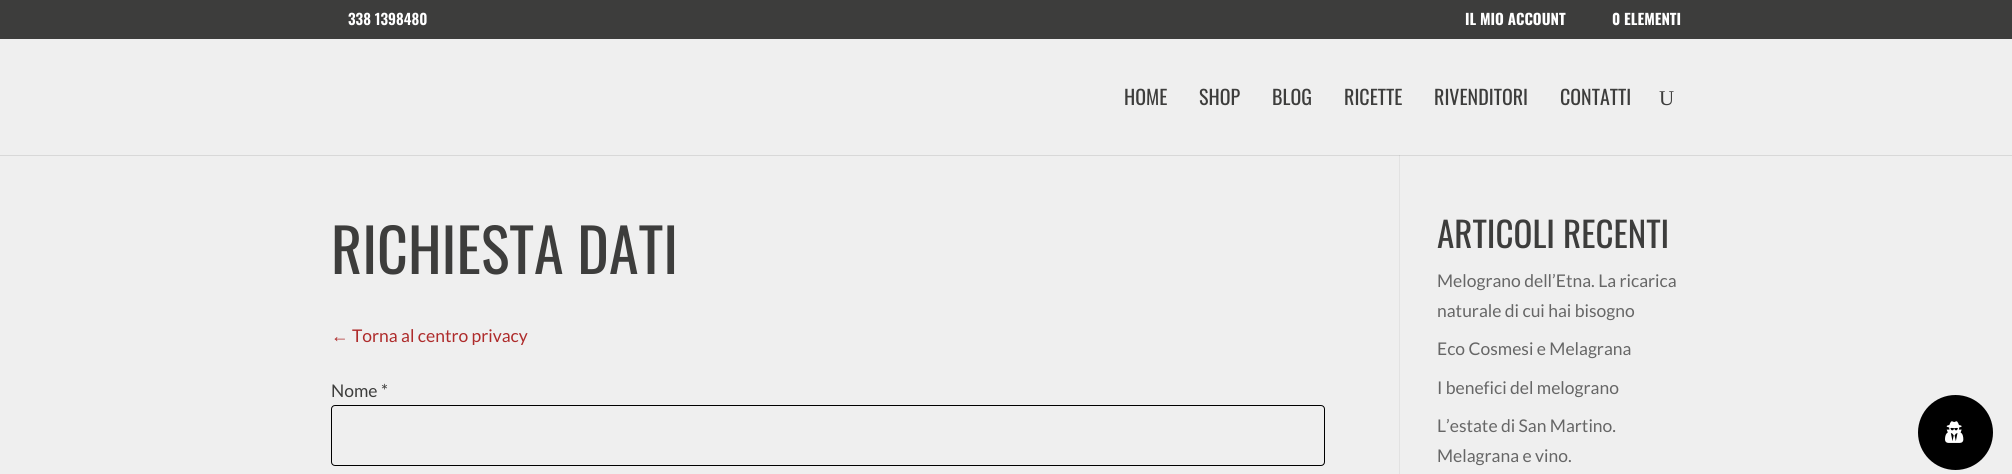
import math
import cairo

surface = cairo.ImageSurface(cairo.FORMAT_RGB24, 2012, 474)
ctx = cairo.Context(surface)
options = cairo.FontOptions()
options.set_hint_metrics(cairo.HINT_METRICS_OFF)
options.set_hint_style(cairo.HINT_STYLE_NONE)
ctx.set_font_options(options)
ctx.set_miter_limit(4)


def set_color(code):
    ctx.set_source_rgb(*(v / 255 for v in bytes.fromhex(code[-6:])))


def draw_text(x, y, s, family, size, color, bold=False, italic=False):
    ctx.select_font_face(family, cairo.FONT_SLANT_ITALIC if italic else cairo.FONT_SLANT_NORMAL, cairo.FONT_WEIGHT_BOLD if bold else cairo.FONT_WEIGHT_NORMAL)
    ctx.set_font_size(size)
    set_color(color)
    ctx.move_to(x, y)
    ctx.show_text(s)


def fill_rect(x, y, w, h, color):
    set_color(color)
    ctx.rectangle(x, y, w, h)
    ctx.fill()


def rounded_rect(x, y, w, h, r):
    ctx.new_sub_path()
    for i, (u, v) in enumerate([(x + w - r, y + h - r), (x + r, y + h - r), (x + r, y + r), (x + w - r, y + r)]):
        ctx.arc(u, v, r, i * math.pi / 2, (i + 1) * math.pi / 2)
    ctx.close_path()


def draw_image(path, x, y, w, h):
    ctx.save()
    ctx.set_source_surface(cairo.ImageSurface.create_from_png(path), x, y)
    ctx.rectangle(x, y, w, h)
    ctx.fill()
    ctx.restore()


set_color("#efefef")
ctx.paint()
fill_rect(0, 0, 2012, 39, "#3d3d3c")
draw_text(348, 25, "338 1398480", "Oswald SemiBold", 15, "#ffffff")
draw_text(1465, 25, "IL MIO ACCOUNT", "Oswald", 15, "#ffffff", bold=True)
draw_text(1612, 25, "0 ELEMENTI", "Oswald", 15, "#ffffff", bold=True)
fill_rect(1399, 155, 1, 319, "#e2e2e2")
ctx.set_source_rgba(0, 0, 0, 0.1)
ctx.new_path()
ctx.move_to(0, 155)
ctx.line_to(0, 156)
ctx.line_to(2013, 156)
ctx.line_to(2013, 39)
ctx.line_to(2012, 39)
ctx.line_to(2012, 155)
ctx.close_path()
ctx.fill()
draw_text(1124, 105, "HOME", "Oswald", 20, "#3d3d3c")
draw_text(1199, 105, "SHOP", "Oswald", 20, "#3d3d3c")
draw_text(1272, 105, "BLOG", "Oswald", 20, "#3d3d3c")
draw_text(1344, 105, "RICETTE", "Oswald", 20, "#3d3d3c")
draw_text(1434, 105, "RIVENDITORI", "Oswald", 20, "#3d3d3c")
draw_text(1560, 105, "CONTATTI", "Oswald", 20, "#3d3d3c")
draw_text(1659, 105, "U", "Liberation Serif", 21, "#3d3d3c")
draw_text(331, 274, "RICHIESTA DATI", "Oswald", 60, "#3d3d3c")
draw_text(331, 342, "←", "Liberation Sans", 17.5, "#ae2b2b")
draw_text(352, 342, "Torna al centro privacy", "Lato", 17.5, "#ae2b2b")
draw_text(331, 397, "Nome *", "Lato", 17.5, "#3d3d3c")
rounded_rect(331.5, 405.5, 993, 60, 3.5)
set_color("#000000")
ctx.set_line_width(1)
ctx.stroke()
draw_text(1437, 248, "ARTICOLI RECENTI", "Oswald", 35, "#3d3d3c")
draw_text(1437, 287, "Melograno dell’Etna. La ricarica", "Lato", 17.5, "#666666")
draw_text(1437, 317, "naturale di cui hai bisogno", "Lato", 17.5, "#666666")
draw_text(1437, 355, "Eco Cosmesi e Melagrana", "Lato", 17.5, "#666666")
draw_text(1437, 394, "I benefici del melograno", "Lato", 17.5, "#666666")
draw_text(1437, 432, "L’estate di San Martino.", "Lato", 17.5, "#666666")
draw_text(1437, 462, "Melagrana e vino.", "Lato", 17.5, "#666666")
set_color("#000000")
ctx.new_path()
ctx.arc(1955.5, 432.5, 37.5, 0, 2 * math.pi)
ctx.fill()
draw_image("assets/img1.png", 1945, 421, 19, 22)
surface.write_to_png("output.png")
